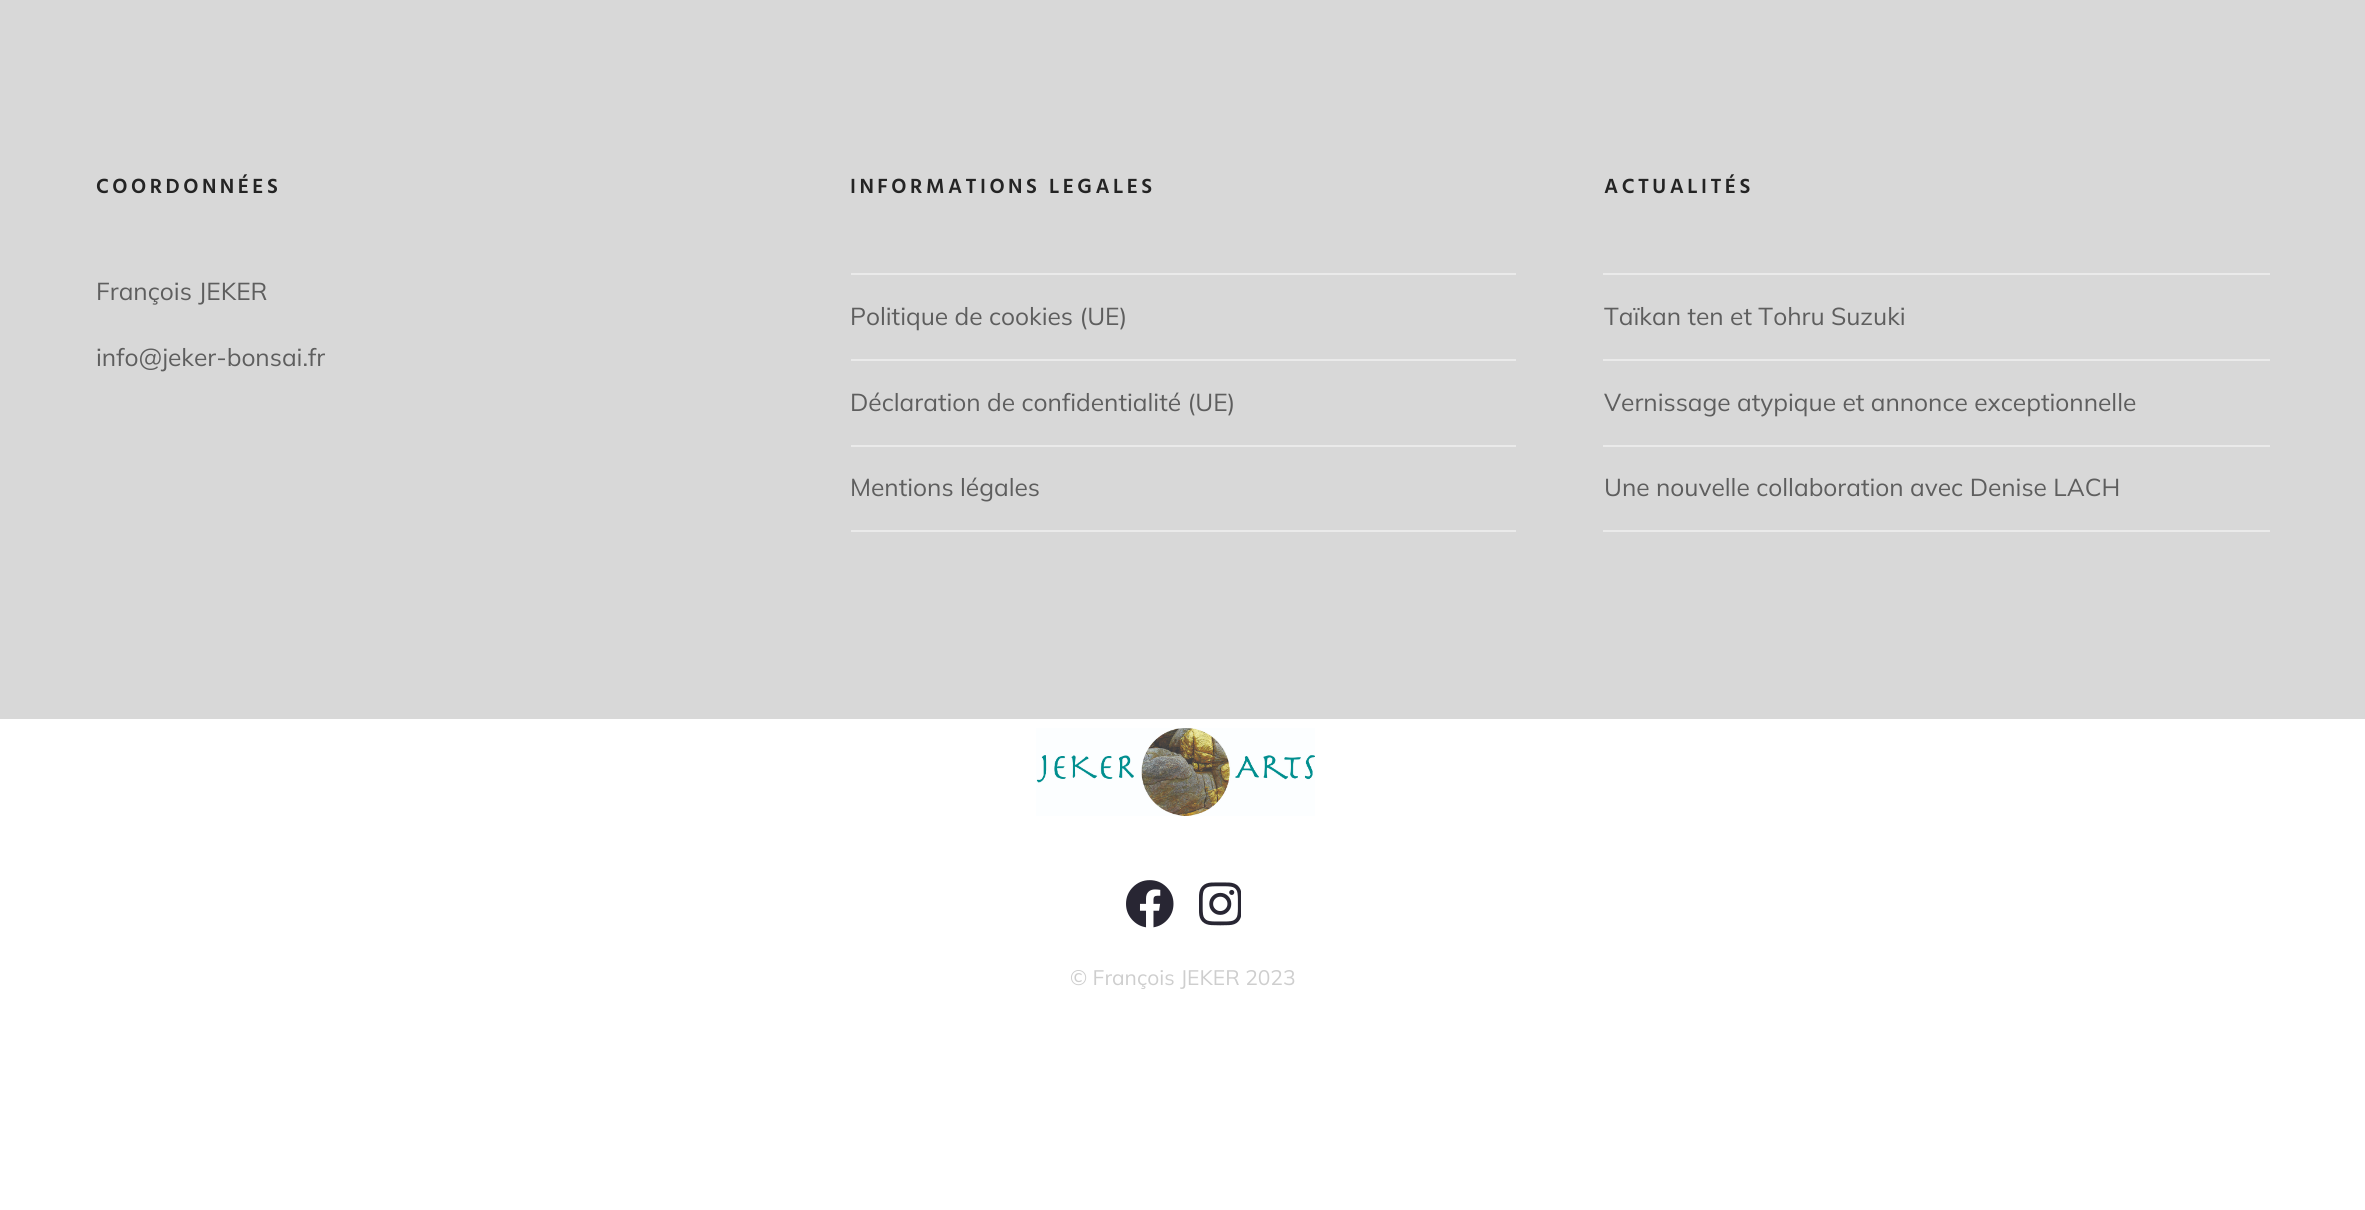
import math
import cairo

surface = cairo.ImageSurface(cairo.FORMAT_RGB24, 2365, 1210)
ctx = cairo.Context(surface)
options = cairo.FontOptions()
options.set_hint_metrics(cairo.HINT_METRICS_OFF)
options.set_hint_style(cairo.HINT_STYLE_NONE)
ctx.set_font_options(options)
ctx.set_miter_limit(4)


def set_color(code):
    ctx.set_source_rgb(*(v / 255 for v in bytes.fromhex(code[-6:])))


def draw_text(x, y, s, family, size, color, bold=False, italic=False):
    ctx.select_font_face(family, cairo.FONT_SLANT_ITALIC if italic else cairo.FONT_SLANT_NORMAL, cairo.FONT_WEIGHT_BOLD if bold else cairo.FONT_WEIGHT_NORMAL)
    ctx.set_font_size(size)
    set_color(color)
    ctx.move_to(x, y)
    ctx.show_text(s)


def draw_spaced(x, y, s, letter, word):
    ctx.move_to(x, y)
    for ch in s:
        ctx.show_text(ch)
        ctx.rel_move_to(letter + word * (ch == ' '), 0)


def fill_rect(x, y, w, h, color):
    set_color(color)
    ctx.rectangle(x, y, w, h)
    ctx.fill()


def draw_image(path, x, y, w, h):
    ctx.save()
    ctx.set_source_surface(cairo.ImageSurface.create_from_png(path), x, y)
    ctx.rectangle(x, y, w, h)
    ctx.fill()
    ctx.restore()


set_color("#ffffff")
ctx.paint()
fill_rect(0, 0, 2365, 719, "#d8d8d8")
ctx.select_font_face("Hind SemiBold")
ctx.set_font_size(21)
set_color("#242424")
draw_spaced(96, 193, "COORDONNÉES", 3.5, 0)
draw_text(96, 300, "François JEKER", "Mulish", 24.5, "#5e5e5e")
draw_text(96, 366, "info@jeker-bonsai.fr", "Mulish", 24.5, "#5e5e5e")
ctx.select_font_face("Hind SemiBold")
ctx.set_font_size(21)
set_color("#242424")
draw_spaced(850, 193, "INFORMATIONS LEGALES", 3.5, 0)
fill_rect(851, 273, 665, 2, "#eaeaea")
draw_text(850, 325, "Politique de cookies (UE)", "Mulish", 24.5, "#5e5e5e")
fill_rect(851, 359, 665, 2, "#eaeaea")
draw_text(850, 411, "Déclaration de confidentialité (UE)", "Mulish", 24.5, "#5e5e5e")
fill_rect(851, 445, 665, 2, "#eaeaea")
fill_rect(851, 530, 665, 2, "#eaeaea")
draw_text(850, 496, "Mentions légales", "Mulish", 24.5, "#5e5e5e")
ctx.select_font_face("Hind SemiBold")
ctx.set_font_size(21)
set_color("#242424")
draw_spaced(1604, 193, "ACTUALITÉS", 3.5, 0)
fill_rect(1603, 273, 667, 2, "#eaeaea")
draw_text(1604, 325, "Taïkan ten et Tohru Suzuki", "Mulish", 24.5, "#5e5e5e")
fill_rect(1603, 359, 667, 2, "#eaeaea")
draw_text(1604, 411, "Vernissage atypique et annonce exceptionnelle", "Mulish", 24.5, "#5e5e5e")
fill_rect(1603, 445, 667, 2, "#eaeaea")
fill_rect(1603, 530, 667, 2, "#eaeaea")
draw_text(1604, 496, "Une nouvelle collaboration avec Denise LACH", "Mulish", 24.5, "#5e5e5e")
draw_image("assets/img1.png", 1036, 728, 279, 88)
draw_image("assets/img2.png", 1126, 880, 48, 48)
draw_image("assets/img3.png", 1199, 882, 42, 44)
draw_text(1070, 985, "© François JEKER 2023", "Mulish", 21, "#cecece")
surface.write_to_png("output.png")
